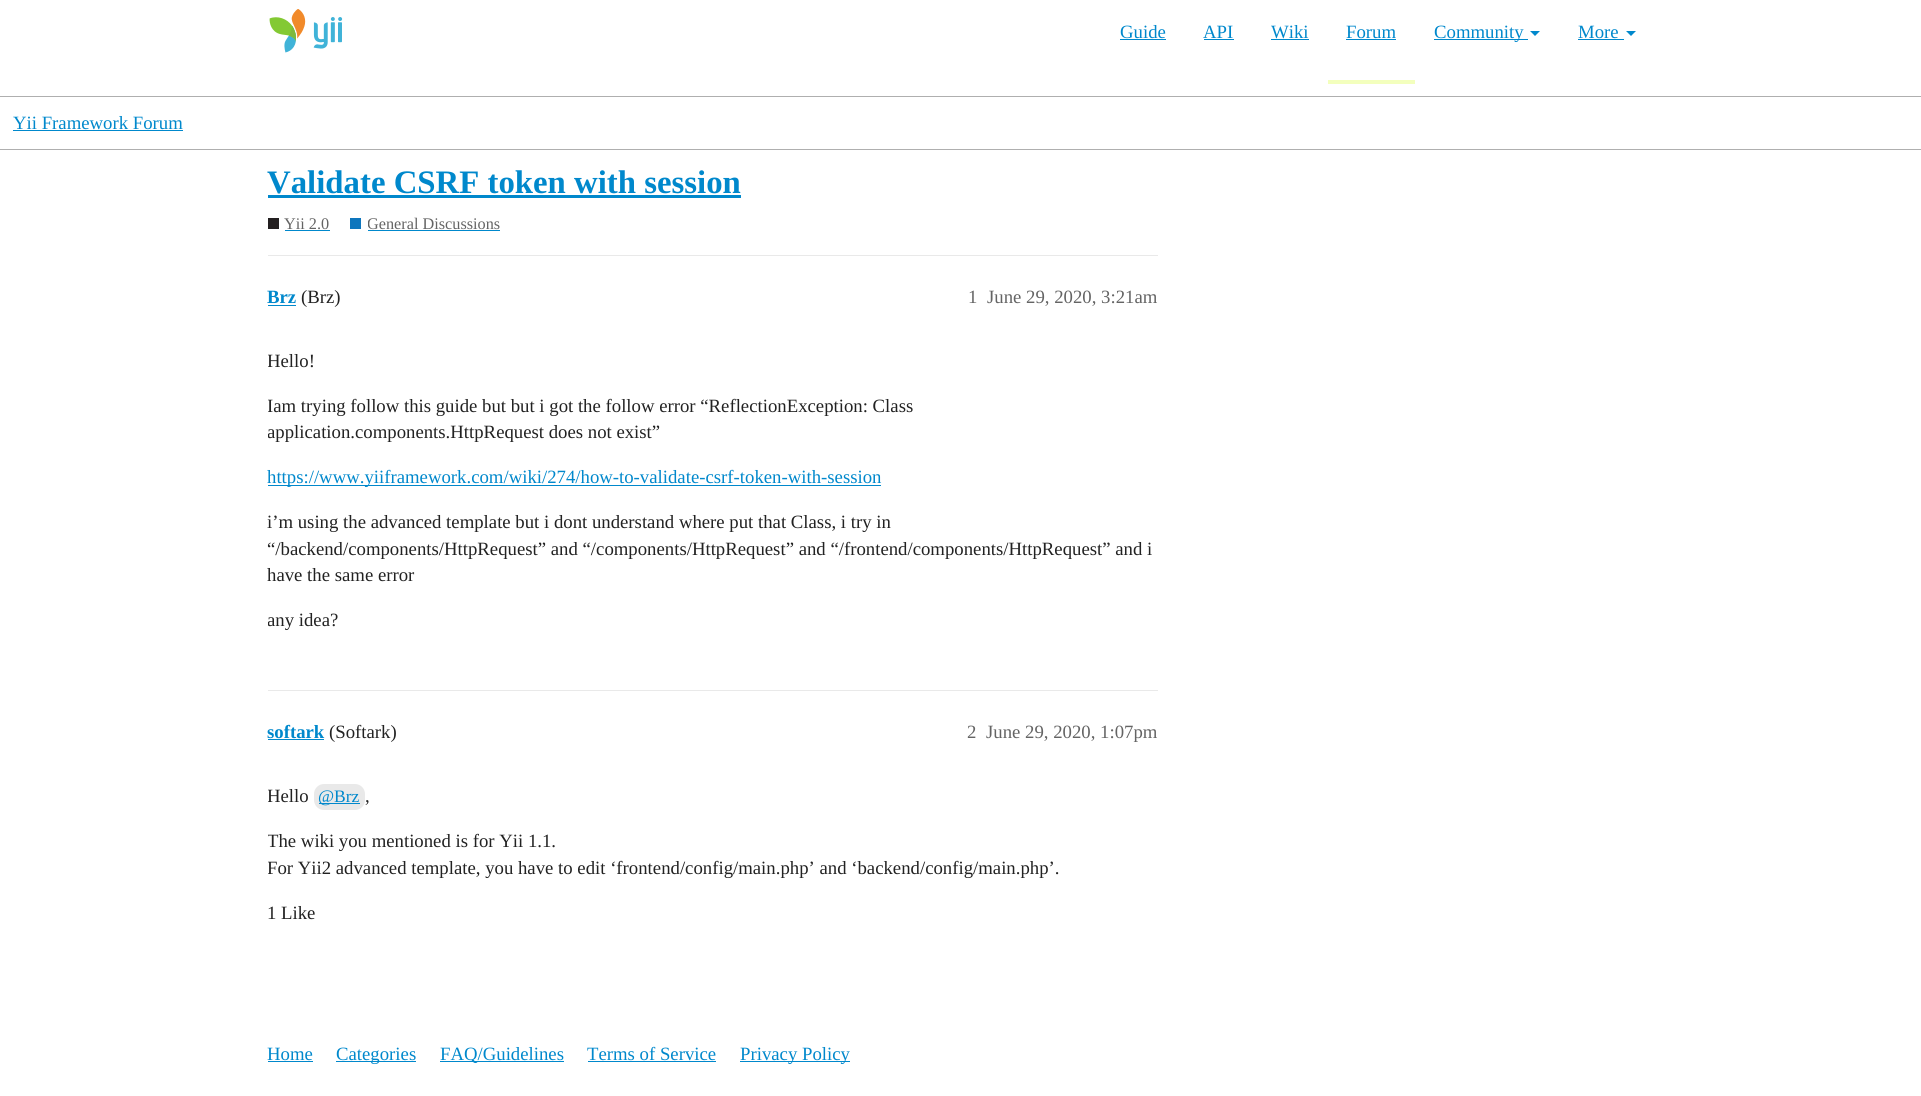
import math
import cairo

surface = cairo.ImageSurface(cairo.FORMAT_RGB24, 1921, 1096)
ctx = cairo.Context(surface)
options = cairo.FontOptions()
options.set_hint_metrics(cairo.HINT_METRICS_OFF)
options.set_hint_style(cairo.HINT_STYLE_NONE)
ctx.set_font_options(options)
ctx.set_miter_limit(4)


def set_color(code):
    ctx.set_source_rgb(*(v / 255 for v in bytes.fromhex(code[-6:])))


def draw_text(x, y, s, family, size, color, bold=False, italic=False):
    ctx.select_font_face(family, cairo.FONT_SLANT_ITALIC if italic else cairo.FONT_SLANT_NORMAL, cairo.FONT_WEIGHT_BOLD if bold else cairo.FONT_WEIGHT_NORMAL)
    ctx.set_font_size(size)
    set_color(color)
    ctx.move_to(x, y)
    ctx.show_text(s)


def fill_rect(x, y, w, h, color):
    set_color(color)
    ctx.rectangle(x, y, w, h)
    ctx.fill()


def rounded_rect(x, y, w, h, r):
    ctx.new_sub_path()
    for i, (u, v) in enumerate([(x + w - r, y + h - r), (x + r, y + h - r), (x + r, y + r), (x + w - r, y + r)]):
        ctx.arc(u, v, r, i * math.pi / 2, (i + 1) * math.pi / 2)
    ctx.close_path()


def draw_image(path, x, y, w, h):
    ctx.save()
    ctx.set_source_surface(cairo.ImageSurface.create_from_png(path), x, y)
    ctx.rectangle(x, y, w, h)
    ctx.fill()
    ctx.restore()


set_color("#ffffff")
ctx.paint()
fill_rect(0, 96, 1921, 1, "#afafaf")
draw_image("assets/img1.png", 269, 9, 74, 44)
draw_text(1120, 38, "Guide", "Liberation Serif", 18.75, "#0088cc")
fill_rect(1120, 39, 46, 1, "#0088cc")
draw_text(1203, 38, "API", "Liberation Serif", 18.75, "#0088cc")
fill_rect(1204, 39, 30, 1, "#0088cc")
draw_text(1271, 38, "Wiki", "Liberation Serif", 18.75, "#0088cc")
fill_rect(1271, 39, 38, 1, "#0088cc")
fill_rect(1328, 80, 87, 4, "#f3ffbd")
draw_text(1346, 38, "Forum", "Liberation Serif", 18.75, "#0088cc")
fill_rect(1346, 39, 50, 1, "#0088cc")
fill_rect(1434, 39, 94, 1, "#0088cc")
draw_text(1434, 38, "Community", "Liberation Serif", 18.75, "#0088cc")
ctx.new_path()
ctx.move_to(1530, 31)
ctx.line_to(1540, 31)
ctx.line_to(1535, 36)
ctx.close_path()
ctx.fill()
draw_text(1578, 38, "More", "Liberation Serif", 18.75, "#0088cc")
fill_rect(1578, 39, 46, 1, "#0088cc")
ctx.new_path()
ctx.move_to(1626, 31)
ctx.line_to(1636, 31)
ctx.line_to(1631, 36)
ctx.close_path()
ctx.fill()
fill_rect(0, 149, 1921, 1, "#afafaf")
draw_text(13, 129, "Yii Framework Forum", "Liberation Serif", 18.75, "#0088cc")
fill_rect(13, 130, 170, 1, "#0088cc")
draw_text(267, 193, "Validate CSRF token with session", "Liberation Serif", 32.8, "#0088cc", bold=True)
fill_rect(268, 195, 473, 3, "#0088cc")
fill_rect(268, 218, 11, 11, "#231f20")
draw_text(284, 229, "Yii 2.0", "Liberation Serif", 16.25, "#646464")
fill_rect(285, 230, 45, 1, "#0088cc")
fill_rect(350, 218, 11, 11, "#0e76bd")
ctx.save()
ctx.rectangle(368, 213, 132, 22)
ctx.clip()
draw_text(367, 229, "General Discussions", "Liberation Serif", 16.25, "#646464")
ctx.restore()
fill_rect(368, 230, 132, 1, "#0088cc")
fill_rect(268, 255, 890, 1, "#e9e9e9")
draw_text(267, 303, "Brz", "Liberation Serif", 18.75, "#0088cc", bold=True)
fill_rect(268, 305, 28, 1, "#0088cc")
draw_text(301, 303, "(Brz)", "Liberation Serif", 18.75, "#222222")
draw_text(968, 303, "1", "Liberation Serif", 18.75, "#646464")
draw_text(987, 303, "June 29, 2020, 3:21am", "Liberation Serif", 18.75, "#646464")
ctx.save()
ctx.rectangle(268, 330, 890, 323)
ctx.clip()
draw_text(267, 367, "Hello!", "Liberation Serif", 18.75, "#222222")
draw_text(267, 412, "Iam trying follow this guide but but i got the follow error “ReflectionException: Class", "Liberation Serif", 18.75, "#222222")
draw_text(267, 438, "application.components.HttpRequest does not exist”", "Liberation Serif", 18.75, "#222222")
ctx.restore()
fill_rect(268, 485, 613, 1, "#0088cc")
draw_text(267, 483, "https://www.yiiframework.com/wiki/274/how-to-validate-csrf-token-with-session", "Liberation Serif", 18.75, "#0088cc")
draw_text(267, 528, "i’m using the advanced template but i dont understand where put that Class, i try in", "Liberation Serif", 18.75, "#222222")
draw_text(267, 555, "“/backend/components/HttpRequest” and “/components/HttpRequest” and “/frontend/components/HttpRequest” and i", "Liberation Serif", 18.75, "#222222")
draw_text(267, 581, "have the same error", "Liberation Serif", 18.75, "#222222")
ctx.save()
ctx.rectangle(268, 330, 890, 323)
ctx.clip()
draw_text(267, 626, "any idea?", "Liberation Serif", 18.75, "#222222")
ctx.restore()
fill_rect(268, 690, 890, 1, "#e9e9e9")
draw_text(267, 738, "softark", "Liberation Serif", 18.75, "#0088cc", bold=True)
fill_rect(268, 739, 56, 1, "#0088cc")
draw_text(329, 738, "(Softark)", "Liberation Serif", 18.75, "#222222")
draw_text(967, 738, "2", "Liberation Serif", 18.75, "#646464")
draw_text(986, 738, "June 29, 2020, 1:07pm", "Liberation Serif", 18.75, "#646464")
ctx.save()
ctx.rectangle(268, 764, 890, 136)
ctx.clip()
draw_text(267, 802, "Hello", "Liberation Serif", 18.75, "#222222")
ctx.restore()
set_color("#e9e9e9")
rounded_rect(314, 784, 51, 26, 10)
ctx.fill()
fill_rect(319, 803, 41, 1, "#0088cc")
draw_text(318, 802, "@Brz", "Liberation Serif", 17.5, "#0088cc")
draw_text(365, 802, ",", "Liberation Serif", 18.75, "#222222")
ctx.save()
ctx.rectangle(268, 764, 890, 136)
ctx.clip()
draw_text(267, 847, "The wiki you mentioned is for Yii 1.1.", "Liberation Serif", 18.75, "#222222")
draw_text(267, 874, "For Yii2 advanced template, you have to edit ‘frontend/config/main.php’ and ‘backend/config/main.php’.", "Liberation Serif", 18.75, "#222222")
ctx.restore()
draw_text(267, 919, "1 Like", "Liberation Serif", 18.75, "#222222")
draw_text(267, 1060, "Home", "Liberation Serif", 18.75, "#0088cc")
fill_rect(268, 1061, 45, 1, "#0088cc")
fill_rect(336, 1061, 80, 1, "#0088cc")
draw_text(336, 1060, "Categories", "Liberation Serif", 18.75, "#0088cc")
fill_rect(440, 1061, 124, 1, "#0088cc")
draw_text(440, 1060, "FAQ/Guidelines", "Liberation Serif", 18.75, "#0088cc")
draw_text(587, 1060, "Terms of Service", "Liberation Serif", 18.75, "#0088cc")
fill_rect(588, 1061, 128, 1, "#0088cc")
fill_rect(740, 1061, 110, 1, "#0088cc")
draw_text(740, 1060, "Privacy Policy", "Liberation Serif", 18.75, "#0088cc")
surface.write_to_png("output.png")
